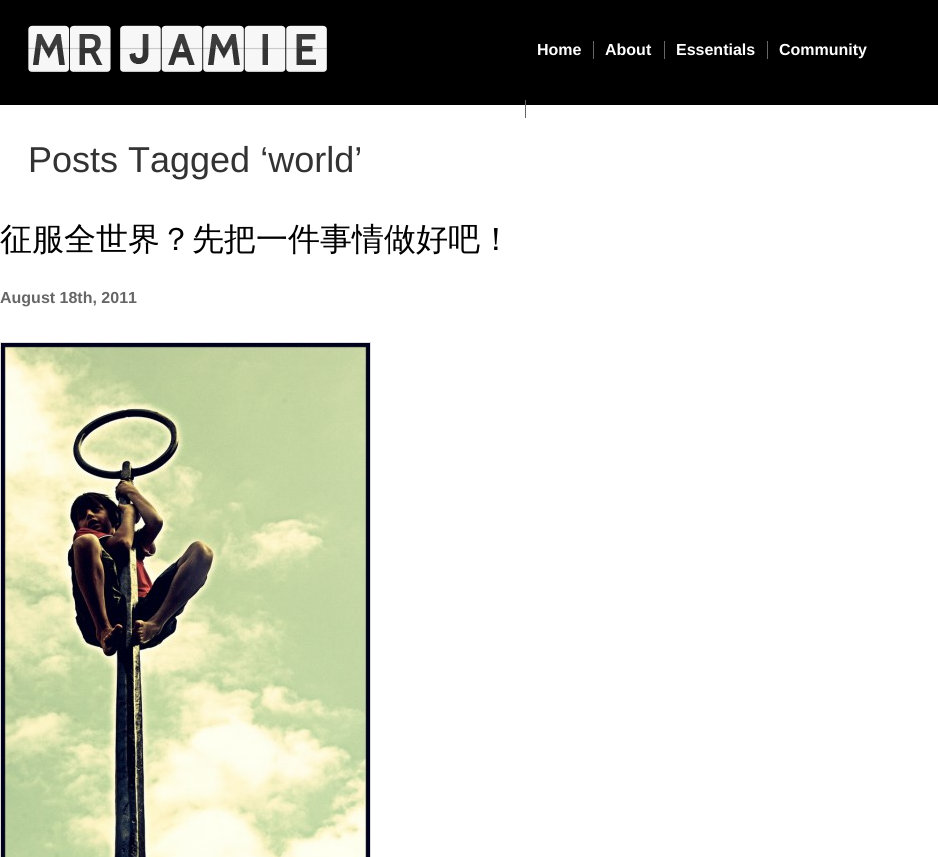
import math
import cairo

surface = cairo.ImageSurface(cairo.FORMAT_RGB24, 938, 857)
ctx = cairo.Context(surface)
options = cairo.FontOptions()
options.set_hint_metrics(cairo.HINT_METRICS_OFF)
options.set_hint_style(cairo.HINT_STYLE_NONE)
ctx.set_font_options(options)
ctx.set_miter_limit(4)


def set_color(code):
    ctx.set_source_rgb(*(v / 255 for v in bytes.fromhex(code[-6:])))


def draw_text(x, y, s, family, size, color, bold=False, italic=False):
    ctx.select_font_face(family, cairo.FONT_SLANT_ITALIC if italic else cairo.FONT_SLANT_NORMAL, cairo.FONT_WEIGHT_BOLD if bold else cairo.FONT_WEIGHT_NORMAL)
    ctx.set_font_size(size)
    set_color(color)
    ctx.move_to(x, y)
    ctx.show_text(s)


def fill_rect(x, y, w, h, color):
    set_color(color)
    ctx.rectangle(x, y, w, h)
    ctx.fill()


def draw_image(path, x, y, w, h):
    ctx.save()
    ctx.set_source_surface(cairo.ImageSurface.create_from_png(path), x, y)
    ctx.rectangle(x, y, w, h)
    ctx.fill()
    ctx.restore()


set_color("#ffffff")
ctx.paint()
fill_rect(0, 0, 938, 105, "#000000")
draw_image("assets/img1.png", 28, 25, 299, 47)
draw_text(537, 55, "Home", "Liberation Sans", 16, "#ffffff", bold=True)
fill_rect(593, 41, 1, 18, "#666666")
draw_text(605, 55, "About", "Liberation Sans", 16, "#ffffff", bold=True)
fill_rect(664, 41, 1, 18, "#666666")
draw_text(676, 55, "Essentials", "Liberation Sans", 16, "#ffffff", bold=True)
fill_rect(767, 41, 1, 18, "#666666")
draw_text(779, 55, "Community", "Liberation Sans", 16, "#ffffff", bold=True)
fill_rect(525, 100, 1, 18, "#666666")
draw_text(28, 172, "Posts Tagged ‘world’", "Liberation Sans", 36, "#333333")
draw_text(0, 250, "征服全世界？先把一件事情做好吧！", "WenQuanYi Zen Hei Medium", 32, "#000000")
draw_text(0, 303, "August 18th, 2011", "Liberation Sans", 16, "#666666", bold=True)
ctx.rectangle(0.5, 342.5, 370, 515)
set_color("#dddddd")
ctx.set_line_width(1)
ctx.stroke()
draw_image("assets/img2.png", 1, 343, 369, 514)
surface.write_to_png("output.png")
